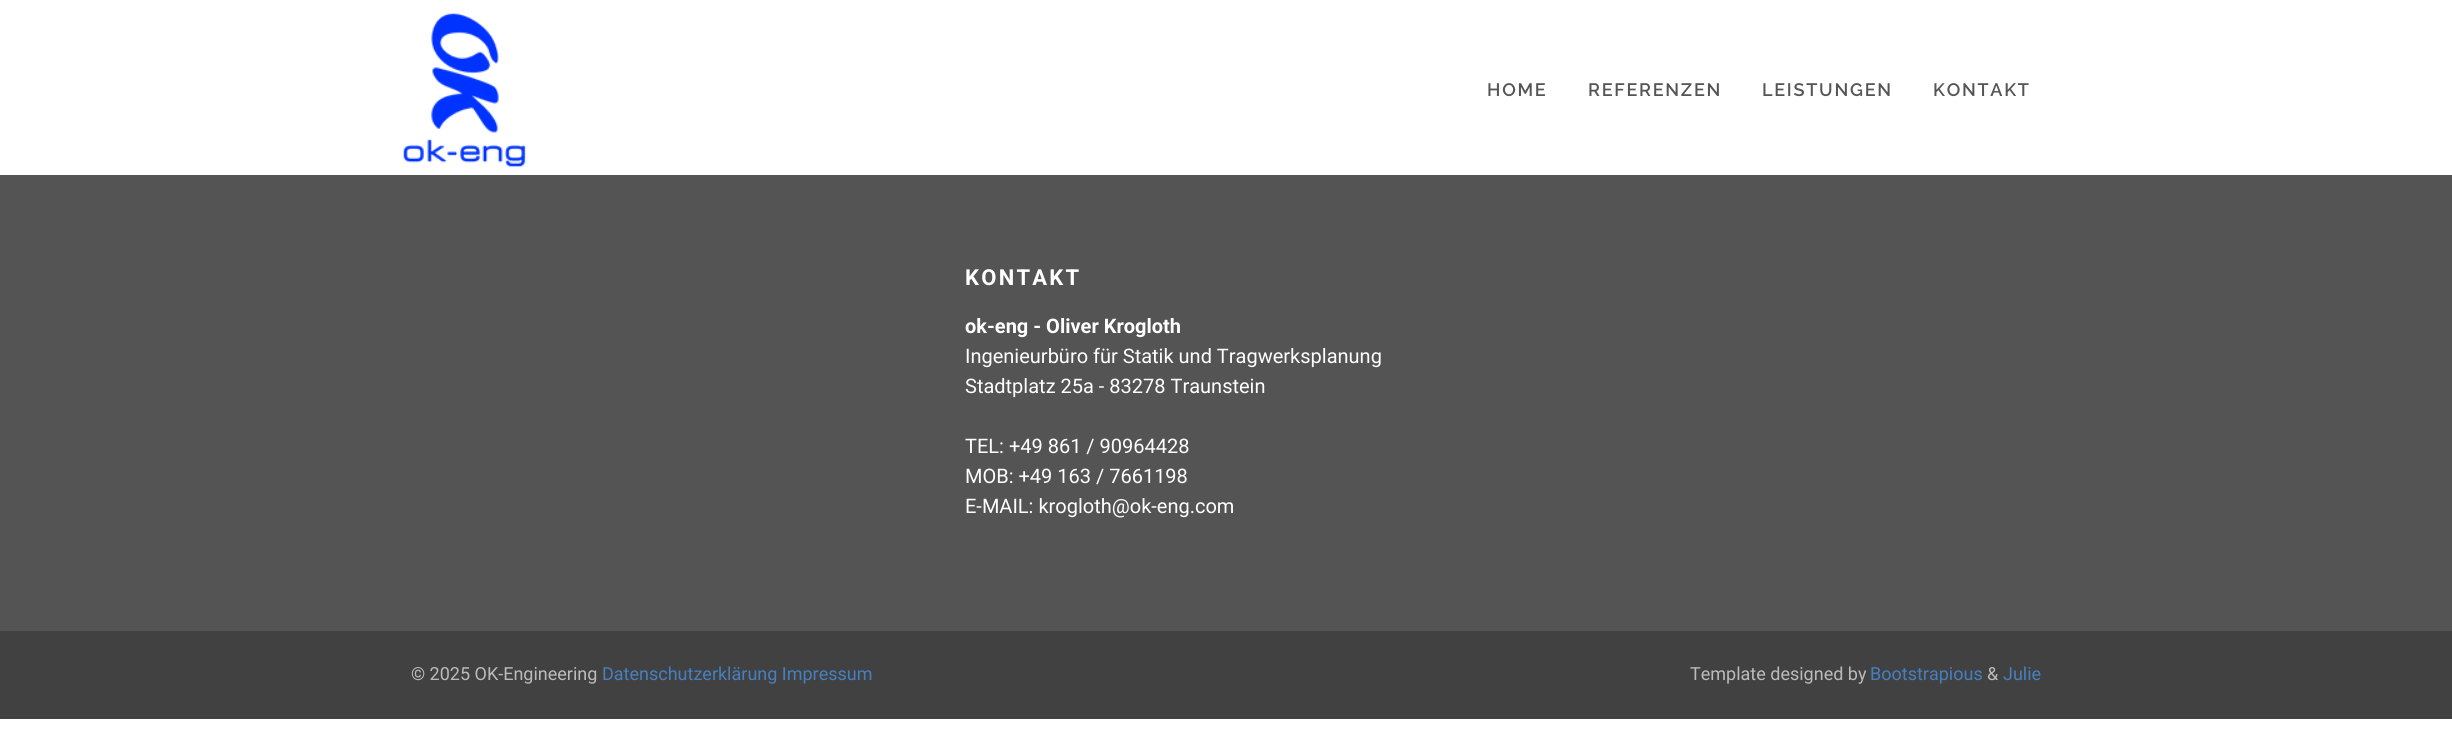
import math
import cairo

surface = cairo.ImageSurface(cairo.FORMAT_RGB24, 2452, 733)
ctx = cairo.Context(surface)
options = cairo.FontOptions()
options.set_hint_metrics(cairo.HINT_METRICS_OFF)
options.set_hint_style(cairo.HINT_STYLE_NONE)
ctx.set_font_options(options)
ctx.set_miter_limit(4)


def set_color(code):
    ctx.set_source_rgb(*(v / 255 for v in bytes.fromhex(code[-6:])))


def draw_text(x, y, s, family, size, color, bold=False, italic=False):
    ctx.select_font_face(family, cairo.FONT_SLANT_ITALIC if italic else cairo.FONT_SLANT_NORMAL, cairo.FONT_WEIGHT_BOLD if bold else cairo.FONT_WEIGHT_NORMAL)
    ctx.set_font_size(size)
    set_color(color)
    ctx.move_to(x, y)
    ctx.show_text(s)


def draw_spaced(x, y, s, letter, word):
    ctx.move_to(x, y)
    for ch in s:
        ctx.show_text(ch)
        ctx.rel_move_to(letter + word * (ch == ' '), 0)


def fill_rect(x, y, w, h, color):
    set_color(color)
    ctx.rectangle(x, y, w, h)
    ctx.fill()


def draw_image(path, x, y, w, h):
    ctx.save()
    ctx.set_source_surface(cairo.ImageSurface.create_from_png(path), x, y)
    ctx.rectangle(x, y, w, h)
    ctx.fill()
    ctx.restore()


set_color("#ffffff")
ctx.paint()
draw_image("assets/img1.png", 403, 13, 123, 154)
ctx.select_font_face("Raleway SemiBold")
ctx.set_font_size(18)
set_color("#555555")
draw_spaced(1487, 96, "HOME", 1.75, 0)
draw_spaced(1588, 96, "REFERENZEN", 1.75, 0)
draw_spaced(1762, 96, "LEISTUNGEN", 1.75, 0)
draw_spaced(1933, 96, "KONTAKT", 1.75, 0)
fill_rect(0, 175, 2452, 456, "#545454")
ctx.select_font_face("Roboto", cairo.FONT_SLANT_NORMAL, cairo.FONT_WEIGHT_BOLD)
ctx.set_font_size(22)
set_color("#ffffff")
draw_spaced(965, 285, "KONTAKT", 2.25, 0)
draw_text(965, 333, "ok-eng - Oliver Krogloth", "Roboto", 20, "#ffffff", bold=True)
draw_text(965, 363, "Ingenieurbüro für Statik und Tragwerksplanung", "Roboto", 20, "#ffffff")
draw_text(965, 393, "Stadtplatz 25a - 83278 Traunstein", "Roboto", 20, "#ffffff")
draw_text(965, 453, "TEL: +49 861 / 90964428", "Roboto", 20, "#ffffff")
draw_text(965, 483, "MOB: +49 163 / 7661198", "Roboto", 20, "#ffffff")
draw_text(965, 513, "E-MAIL: krogloth@ok-eng.com", "Roboto", 20, "#ffffff")
fill_rect(0, 631, 2452, 88, "#414141")
draw_text(411, 680, "© 2025 OK-Engineering", "Roboto", 18, "#bbbbbb")
draw_text(602, 680, "Datenschutzerklärung Impressum", "Roboto", 18, "#467fbf")
draw_text(1690, 680, "Template designed by", "Roboto", 18, "#bbbbbb")
draw_text(1870, 680, "Bootstrapious", "Roboto", 18, "#467fbf")
draw_text(1987, 680, "&", "Roboto", 18, "#bbbbbb")
draw_text(2003, 680, "Julie", "Roboto", 18, "#467fbf")
surface.write_to_png("output.png")
